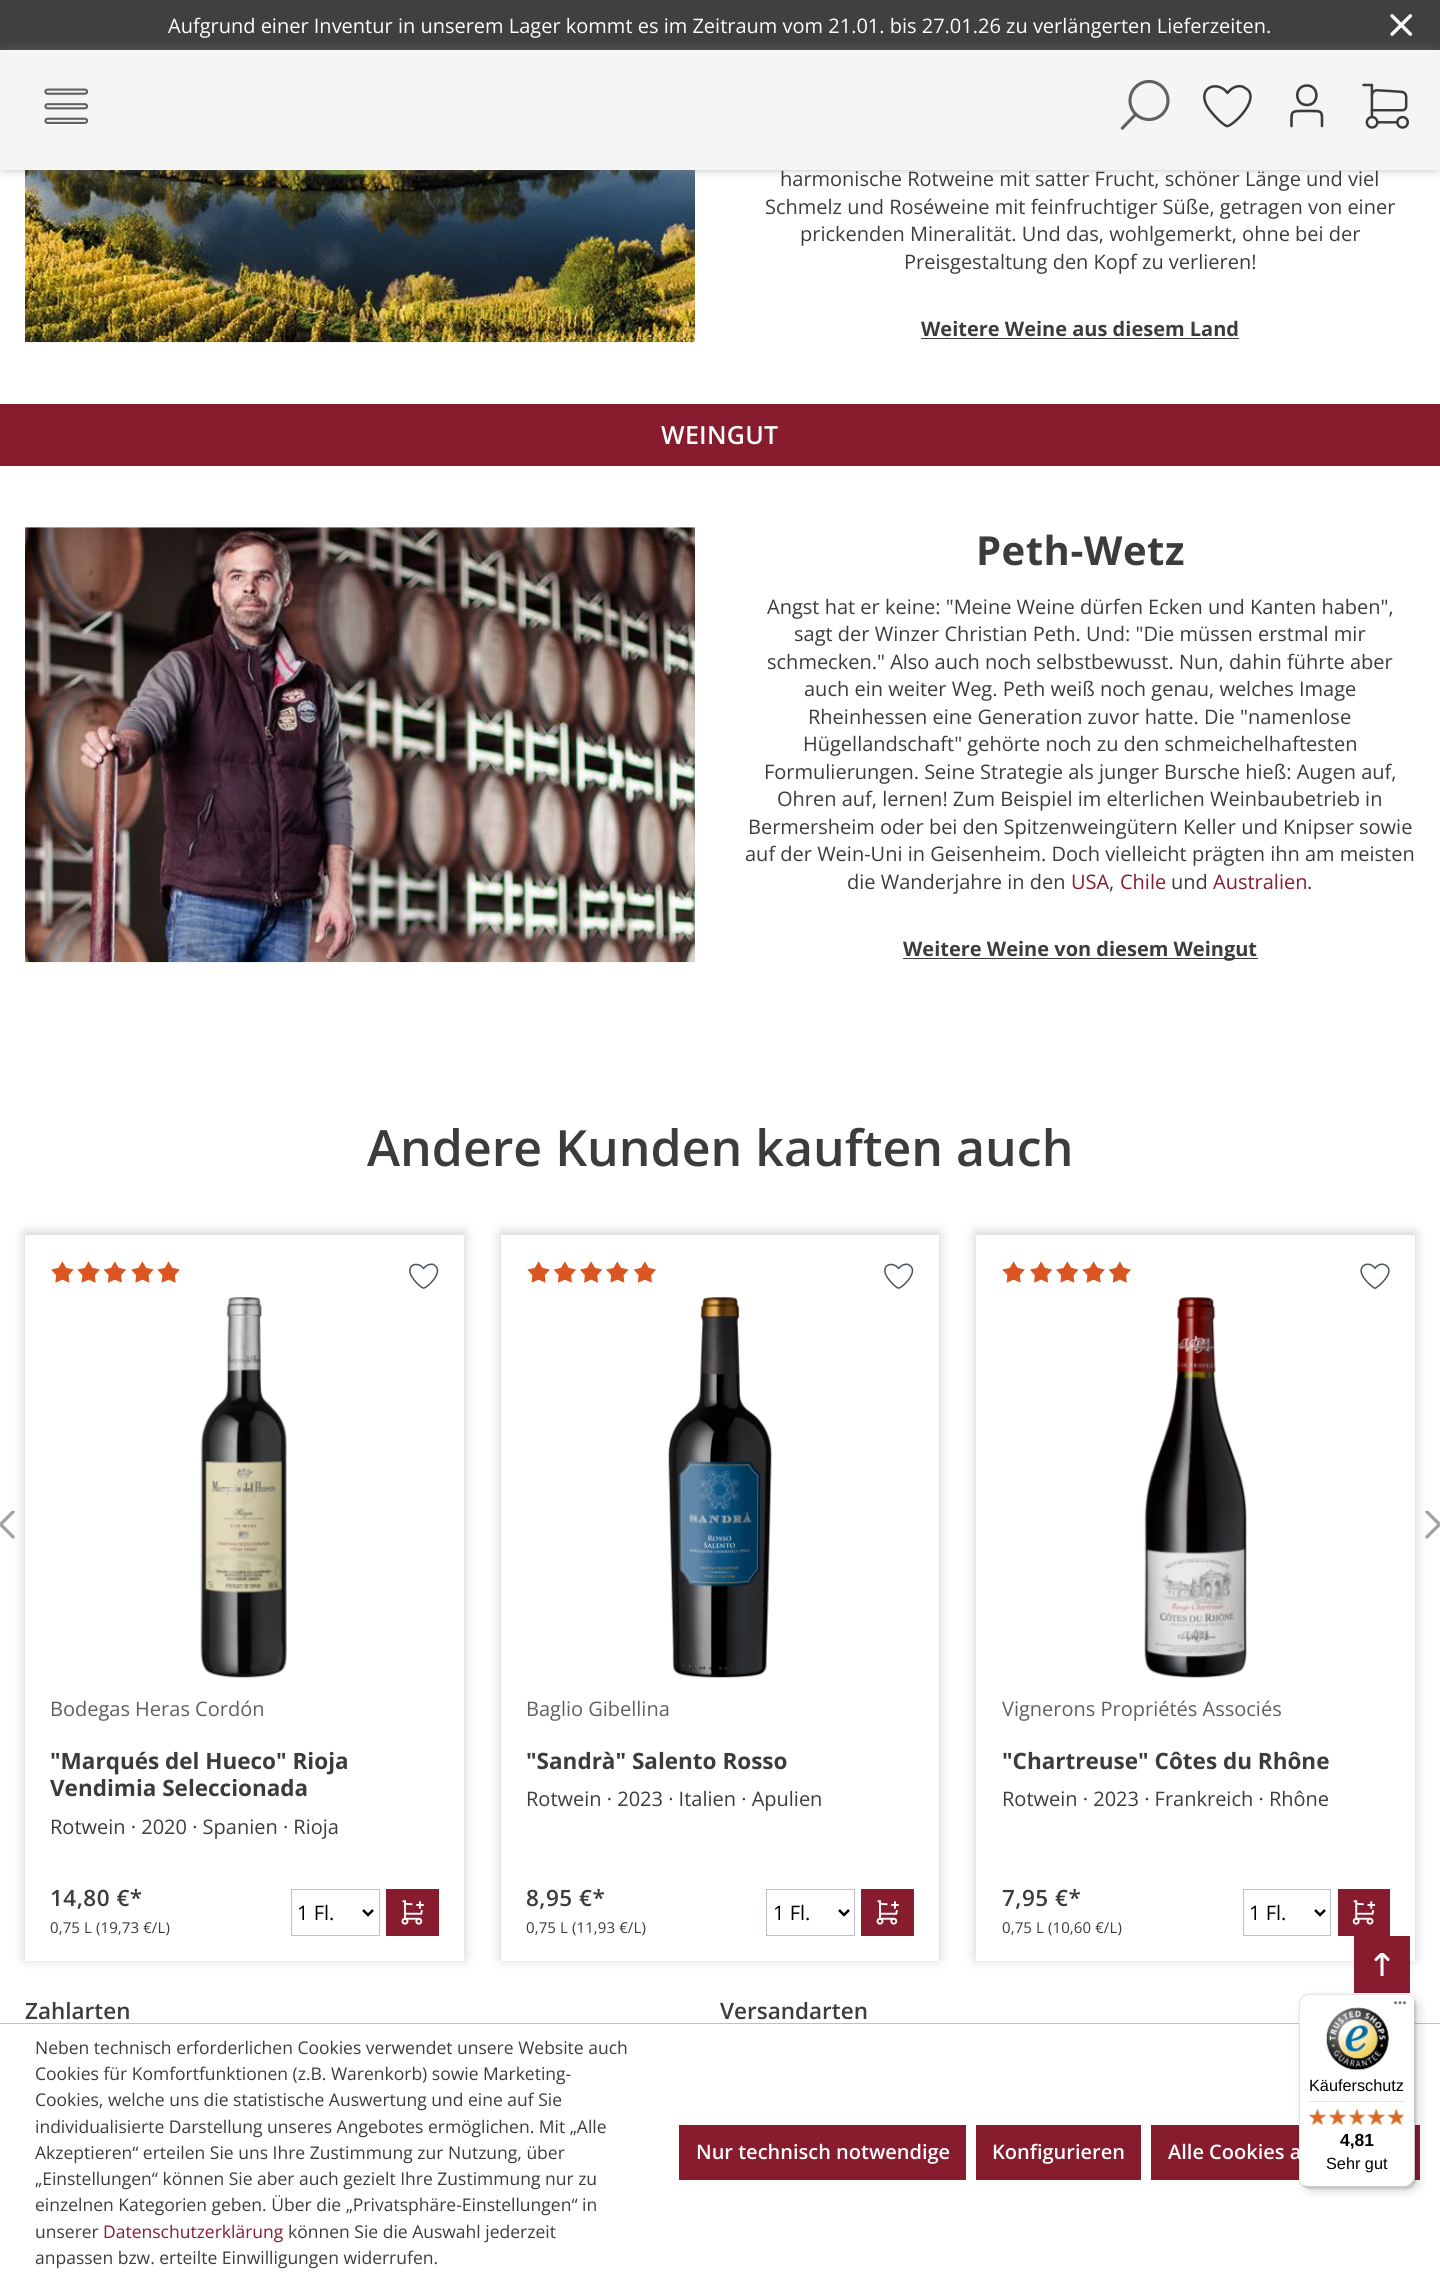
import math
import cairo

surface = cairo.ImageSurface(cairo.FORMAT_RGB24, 1440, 2280)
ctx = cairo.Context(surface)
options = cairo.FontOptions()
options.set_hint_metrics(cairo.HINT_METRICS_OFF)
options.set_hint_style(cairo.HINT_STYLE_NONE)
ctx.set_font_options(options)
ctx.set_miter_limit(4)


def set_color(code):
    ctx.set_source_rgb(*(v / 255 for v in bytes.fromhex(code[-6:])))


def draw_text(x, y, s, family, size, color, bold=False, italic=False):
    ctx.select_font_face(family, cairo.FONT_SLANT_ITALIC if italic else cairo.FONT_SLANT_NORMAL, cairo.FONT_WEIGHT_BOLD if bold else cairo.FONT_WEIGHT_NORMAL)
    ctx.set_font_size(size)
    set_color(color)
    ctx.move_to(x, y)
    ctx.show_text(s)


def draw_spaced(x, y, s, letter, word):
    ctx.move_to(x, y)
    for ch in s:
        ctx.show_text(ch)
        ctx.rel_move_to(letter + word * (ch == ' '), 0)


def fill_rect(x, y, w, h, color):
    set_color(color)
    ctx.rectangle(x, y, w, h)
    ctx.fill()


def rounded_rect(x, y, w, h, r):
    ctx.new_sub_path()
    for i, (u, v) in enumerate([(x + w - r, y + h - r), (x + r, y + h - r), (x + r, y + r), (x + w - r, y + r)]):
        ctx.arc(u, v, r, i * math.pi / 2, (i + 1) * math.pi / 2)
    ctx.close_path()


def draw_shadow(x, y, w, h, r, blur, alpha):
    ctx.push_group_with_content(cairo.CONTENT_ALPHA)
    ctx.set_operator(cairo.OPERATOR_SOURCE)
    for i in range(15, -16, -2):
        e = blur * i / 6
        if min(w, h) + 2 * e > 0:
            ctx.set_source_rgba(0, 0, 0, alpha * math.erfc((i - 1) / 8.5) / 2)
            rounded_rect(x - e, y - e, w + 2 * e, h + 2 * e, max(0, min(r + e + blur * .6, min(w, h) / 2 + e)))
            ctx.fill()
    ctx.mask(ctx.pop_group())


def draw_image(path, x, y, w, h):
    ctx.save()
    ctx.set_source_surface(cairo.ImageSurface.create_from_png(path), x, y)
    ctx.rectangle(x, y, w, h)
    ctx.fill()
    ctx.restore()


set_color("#ffffff")
ctx.paint()
fill_rect(0, 0, 1440, 50, "#404040")
draw_text(168, 33, "Aufgrund einer Inventur in unserem Lager kommt es im Zeitraum vom 21.01. bis 27.01.26 zu verlängerten Lieferzeiten.", "Open Sans", 20, "#ffffff")
draw_image("assets/img1.png", 1390, 14, 23, 22)
draw_image("assets/img4.png", 25, 170, 670, 173)
set_color("#808080")
draw_shadow(4, 54, 1432, 112, 0, 6, 1)
fill_rect(0, 50, 1440, 120, "#f5f5f5")
draw_image("assets/img2.png", 44, 88, 45, 36)
ctx.arc(1149, 100.5, 19, 0, 2 * math.pi)
set_color("#606060")
ctx.set_line_width(3.1)
ctx.stroke()
ctx.new_path()
ctx.move_to(1135.5, 114.5)
ctx.line_to(1122.5, 128)
ctx.set_line_cap(cairo.LINE_CAP_SQUARE)
ctx.set_line_join(cairo.LINE_JOIN_BEVEL)
ctx.stroke()
ctx.new_path()
ctx.move_to(1243.5, 87)
ctx.curve_to(1237.5, 84.5, 1231, 88, 1227.5, 93)
ctx.curve_to(1219.5, 82, 1202.5, 85, 1204.5, 99)
ctx.curve_to(1205.5, 105, 1209, 109.5, 1213, 114)
ctx.curve_to(1216.5, 118, 1221.5, 123.5, 1226.5, 126)
ctx.curve_to(1230.5, 128, 1259, 102, 1248, 90)
ctx.close_path()
set_color("#3c3c3b")
ctx.set_line_width(2.5)
ctx.set_line_cap(cairo.LINE_CAP_ROUND)
ctx.set_line_join(cairo.LINE_JOIN_ROUND)
ctx.stroke()
ctx.new_path()
ctx.move_to(1307, 105)
ctx.curve_to(1319.5, 105, 1319.5, 85.5, 1307, 85.5)
ctx.curve_to(1294, 85.5, 1294, 105, 1307, 105)
ctx.close_path()
ctx.move_to(1322, 126)
ctx.curve_to(1322, 110, 1323.5, 111, 1307, 111)
ctx.curve_to(1290, 111, 1291.5, 110, 1291.5, 126)
ctx.set_line_width(2.6)
ctx.stroke()
draw_image("assets/img3.png", 1362, 83, 47, 46)
draw_text(780, 186, "harmonische Rotweine mit satter Frucht, schöner Länge und viel", "Open Sans", 20, "#3c3c3b")
draw_text(765, 214, "Schmelz und Roséweine mit feinfruchtiger Süße, getragen von einer", "Open Sans", 20, "#3c3c3b")
draw_text(800, 241, "prickenden Mineralität. Und das, wohlgemerkt, ohne bei der", "Open Sans", 20, "#3c3c3b")
draw_text(904, 269, "Preisgestaltung den Kopf zu verlieren!", "Open Sans", 20, "#3c3c3b")
draw_text(921, 336, "Weitere Weine aus diesem Land", "Open Sans", 20, "#3c3c3b", bold=True)
fill_rect(921, 338, 318, 1, "#3c3c3b")
fill_rect(0, 404, 1440, 62, "#871c2f")
ctx.select_font_face("Open Sans SemiBold")
ctx.set_font_size(25)
set_color("#ffffff")
draw_spaced(661, 444, "WEINGUT", 0.25, 0)
draw_image("assets/img5.png", 25, 527, 670, 436)
ctx.select_font_face("Open Sans", cairo.FONT_SLANT_NORMAL, cairo.FONT_WEIGHT_BOLD)
ctx.set_font_size(40)
set_color("#3c3c3b")
draw_spaced(976, 565, "Peth-Wetz", 0.5, 0)
draw_text(767, 614, "Angst hat er keine: \"Meine Weine dürfen Ecken und Kanten haben\",", "Open Sans", 20, "#3c3c3b")
draw_text(794, 641, "sagt der Winzer Christian Peth. Und: \"Die müssen erstmal mir", "Open Sans", 20, "#3c3c3b")
draw_text(767, 669, "schmecken.\" Also auch noch selbstbewusst. Nun, dahin führte aber", "Open Sans", 20, "#3c3c3b")
draw_text(804, 696, "auch ein weiter Weg. Peth weiß noch genau, welches Image", "Open Sans", 20, "#3c3c3b")
draw_text(808, 724, "Rheinhessen eine Generation zuvor hatte. Die \"namenlose", "Open Sans", 20, "#3c3c3b")
draw_text(803, 751, "Hügellandschaft\" gehörte noch zu den schmeichelhaftesten", "Open Sans", 20, "#3c3c3b")
draw_text(764, 779, "Formulierungen. Seine Strategie als junger Bursche hieß: Augen auf,", "Open Sans", 20, "#3c3c3b")
draw_text(777, 806, "Ohren auf, lernen! Zum Beispiel im elterlichen Weinbaubetrieb in", "Open Sans", 20, "#3c3c3b")
draw_text(748, 834, "Bermersheim oder bei den Spitzenweingütern Keller und Knipser sowie", "Open Sans", 20, "#3c3c3b")
draw_text(745, 861, "auf der Wein-Uni in Geisenheim. Doch vielleicht prägten ihn am meisten", "Open Sans", 20, "#3c3c3b")
draw_text(847, 889, "die Wanderjahre in den", "Open Sans", 20, "#3c3c3b")
draw_text(1071, 889, "USA", "Open Sans", 20, "#871c2f")
draw_text(1109, 889, ",", "Open Sans", 20, "#3c3c3b")
draw_text(1120, 889, "Chile", "Open Sans", 20, "#871c2f")
draw_text(1171, 889, "und", "Open Sans", 20, "#3c3c3b")
draw_text(1213, 889, "Australien", "Open Sans", 20, "#871c2f")
draw_text(1307, 889, ".", "Open Sans", 20, "#3c3c3b")
fill_rect(903, 958, 355, 1, "#3c3c3b")
draw_text(903, 956, "Weitere Weine von diesem Weingut", "Open Sans", 20, "#3c3c3b", bold=True)
draw_text(367, 1166, "Andere Kunden kauften auch", "Open Sans SemiBold", 50, "#3c3c3b")
set_color("#cccccc")
draw_shadow(25, 1233, 439, 726, 0, 6, 1)
draw_image("assets/img6.png", 0, 1511, 15, 28)
draw_shadow(976, 1233, 439, 726, 0, 6, 1)
draw_image("assets/img7.png", 1425, 1511, 15, 28)
fill_rect(25, 1235, 439, 726, "#ffffff")
draw_image("assets/img8.png", 200, 1297, 87, 381)
draw_image("assets/img9.png", 51, 1261, 23, 22)
draw_image("assets/img10.png", 77, 1261, 23, 22)
draw_image("assets/img11.png", 103, 1261, 23, 22)
draw_image("assets/img9.png", 131, 1261, 23, 22)
draw_image("assets/img10.png", 157, 1261, 23, 22)
ctx.new_path()
ctx.move_to(433.5, 1264.5)
ctx.curve_to(429.5, 1263.5, 426, 1265.5, 423.5, 1268.5)
ctx.curve_to(419, 1262, 408.5, 1263.5, 410, 1272)
ctx.curve_to(410.5, 1275.5, 413, 1278.5, 415, 1281)
ctx.curve_to(417, 1283.5, 420, 1286.5, 423, 1288)
ctx.curve_to(425.5, 1289.5, 442.5, 1274, 436, 1266.5)
ctx.close_path()
set_color("#4a545b")
ctx.set_line_width(1.5)
ctx.stroke()
draw_text(50, 1716, "Bodegas Heras Cordón", "Open Sans", 20, "#606060")
draw_text(50, 1769, "\"Marqués del Hueco\" Rioja", "Open Sans", 22.5, "#3c3c3b", bold=True)
draw_text(50, 1796, "Vendimia Seleccionada", "Open Sans", 22.5, "#3c3c3b", bold=True)
draw_text(50, 1834, "Rotwein · 2020 · Spanien · Rioja", "Open Sans", 20, "#3c3c3b")
ctx.select_font_face("Open Sans SemiBold")
ctx.set_font_size(22.5)
draw_spaced(50, 1906, "14,80 €*", 0.5, 0)
ctx.select_font_face("Open Sans")
ctx.set_font_size(15)
draw_spaced(50, 1933, "0,75 L (19,73 €/L)", 0.1, 0)
ctx.rectangle(291.5, 1889.5, 88, 46)
set_color("#bcc1c7")
ctx.set_line_width(1)
ctx.set_line_cap(cairo.LINE_CAP_BUTT)
ctx.set_line_join(cairo.LINE_JOIN_MITER)
ctx.stroke()
ctx.new_path()
ctx.move_to(363, 1910)
ctx.line_to(368, 1915)
ctx.line_to(373, 1910)
set_color("#000000")
ctx.set_line_width(2.5)
ctx.stroke()
draw_text(297, 1920, "1 Fl.", "Open Sans", 20, "#000000")
fill_rect(386, 1889, 53, 47, "#871c2f")
draw_image("assets/img12.png", 401, 1900, 23, 25)
set_color("#cccccc")
draw_shadow(501, 1233, 438, 726, 0, 6, 1)
fill_rect(501, 1235, 438, 726, "#ffffff")
draw_image("assets/img13.png", 668, 1297, 104, 381)
draw_image("assets/img10.png", 527, 1261, 23, 22)
draw_image("assets/img11.png", 553, 1261, 23, 22)
draw_image("assets/img14.png", 579, 1261, 24, 22)
draw_image("assets/img9.png", 606, 1261, 23, 22)
draw_image("assets/img11.png", 633, 1261, 23, 22)
ctx.new_path()
ctx.move_to(908.5, 1264.5)
ctx.curve_to(904.5, 1263.5, 901, 1265.5, 898.5, 1268.5)
ctx.curve_to(894, 1262, 883.5, 1263.5, 885, 1272)
ctx.curve_to(885.5, 1275.5, 888, 1278.5, 890, 1281)
ctx.curve_to(892, 1283.5, 895, 1286.5, 898, 1288)
ctx.curve_to(900.5, 1289.5, 917.5, 1274, 911, 1266.5)
ctx.close_path()
set_color("#4a545b")
ctx.set_line_width(1.5)
ctx.set_line_cap(cairo.LINE_CAP_ROUND)
ctx.set_line_join(cairo.LINE_JOIN_ROUND)
ctx.stroke()
draw_text(526, 1716, "Baglio Gibellina", "Open Sans", 20, "#606060")
draw_text(526, 1769, "\"Sandrà\" Salento Rosso", "Open Sans", 22.5, "#3c3c3b", bold=True)
draw_text(526, 1806, "Rotwein · 2023 · Italien · Apulien", "Open Sans", 20, "#3c3c3b")
ctx.select_font_face("Open Sans SemiBold")
ctx.set_font_size(22.5)
draw_spaced(526, 1906, "8,95 €*", 0.5, 0)
ctx.select_font_face("Open Sans")
ctx.set_font_size(15)
draw_spaced(526, 1933, "0,75 L (11,93 €/L)", 0.1, 0)
ctx.rectangle(766.5, 1889.5, 88, 46)
set_color("#bcc1c7")
ctx.set_line_width(1)
ctx.set_line_cap(cairo.LINE_CAP_BUTT)
ctx.set_line_join(cairo.LINE_JOIN_MITER)
ctx.stroke()
ctx.new_path()
ctx.move_to(839, 1910)
ctx.line_to(844, 1915)
ctx.line_to(849, 1910)
set_color("#000000")
ctx.set_line_width(2.5)
ctx.stroke()
draw_text(773, 1920, "1 Fl.", "Open Sans", 20, "#000000")
fill_rect(861, 1889, 53, 47, "#871c2f")
draw_image("assets/img12.png", 876, 1900, 23, 25)
fill_rect(976, 1235, 439, 726, "#ffffff")
draw_image("assets/img15.png", 1144, 1297, 103, 381)
draw_image("assets/img10.png", 1002, 1261, 23, 22)
draw_image("assets/img14.png", 1029, 1261, 24, 22)
draw_image("assets/img9.png", 1056, 1261, 23, 22)
draw_image("assets/img10.png", 1082, 1261, 23, 22)
draw_image("assets/img11.png", 1108, 1261, 23, 22)
draw_image("assets/img16.png", 1360, 1263, 30, 26)
draw_text(1002, 1716, "Vignerons Propriétés Associés", "Open Sans", 20, "#606060")
draw_text(1002, 1769, "\"Chartreuse\" Côtes du Rhône", "Open Sans", 22.5, "#3c3c3b", bold=True)
draw_text(1002, 1806, "Rotwein · 2023 · Frankreich · Rhône", "Open Sans", 20, "#3c3c3b")
ctx.select_font_face("Open Sans SemiBold")
ctx.set_font_size(22.5)
draw_spaced(1002, 1906, "7,95 €*", 0.5, 0)
ctx.select_font_face("Open Sans")
ctx.set_font_size(15)
draw_spaced(1002, 1933, "0,75 L (10,60 €/L)", 0.1, 0)
ctx.rectangle(1243.5, 1889.5, 87, 46)
set_color("#bcc1c7")
ctx.set_line_width(1)
ctx.stroke()
ctx.new_path()
ctx.move_to(1315, 1910)
ctx.line_to(1320, 1915)
ctx.line_to(1325, 1910)
set_color("#000000")
ctx.set_line_width(2.5)
ctx.stroke()
draw_text(1249, 1920, "1 Fl.", "Open Sans", 20, "#000000")
fill_rect(1338, 1889, 52, 47, "#871c2f")
draw_image("assets/img17.png", 1352, 1900, 23, 25)
fill_rect(1354, 1936, 56, 57, "#871c2f")
draw_image("assets/img18.png", 1374, 1953, 16, 23)
draw_text(25, 2019, "Zahlarten", "Open Sans SemiBold", 22.5, "#3c3c3b")
draw_text(720, 2019, "Versandarten", "Open Sans SemiBold", 22.5, "#3c3c3b")
fill_rect(0, 2023, 1440, 1, "#bcc1c7")
draw_text(35, 2054, "Neben technisch erforderlichen Cookies verwendet unsere Website auch", "Open Sans", 17.5, "#3c3c3b")
draw_text(35, 2080, "Cookies für Komfortfunktionen (z.B. Warenkorb) sowie Marketing-", "Open Sans", 17.5, "#3c3c3b")
draw_text(35, 2106, "Cookies, welche uns die statistische Auswertung und eine auf Sie", "Open Sans", 17.5, "#3c3c3b")
draw_text(35, 2133, "individualisierte Darstellung unseres Angebotes ermöglichen. Mit „Alle", "Open Sans", 17.5, "#3c3c3b")
draw_text(35, 2159, "Akzeptieren“ erteilen Sie uns Ihre Zustimmung zur Nutzung, über", "Open Sans", 17.5, "#3c3c3b")
draw_text(35, 2185, "„Einstellungen“ können Sie aber auch gezielt Ihre Zustimmung nur zu", "Open Sans", 17.5, "#3c3c3b")
draw_text(35, 2211, "einzelnen Kategorien geben. Über die „Privatsphäre-Einstellungen“ in", "Open Sans", 17.5, "#3c3c3b")
draw_text(35, 2238, "unserer", "Open Sans", 17.5, "#3c3c3b")
draw_text(103, 2238, "Datenschutzerklärung", "Open Sans", 17.5, "#871c2f")
draw_text(288, 2238, "können Sie die Auswahl jederzeit", "Open Sans", 17.5, "#3c3c3b")
draw_text(35, 2264, "anpassen bzw. erteilte Einwilligungen widerrufen.", "Open Sans", 17.5, "#3c3c3b")
fill_rect(679, 2125, 287, 55, "#871c2f")
draw_text(696, 2159, "Nur technisch notwendige", "Open Sans SemiBold", 20, "#ffffff")
fill_rect(976, 2125, 165, 55, "#871c2f")
draw_text(992, 2159, "Konfigurieren", "Open Sans SemiBold", 20, "#ffffff")
fill_rect(1151, 2125, 269, 55, "#871c2f")
draw_text(1168, 2159, "Alle Cookies a", "Open Sans SemiBold", 20, "#ffffff")
set_color("#000000")
draw_shadow(1303, 1998, 116, 193, 10, 5, 0.15)
draw_shadow(1300, 1995, 116, 194, 10, 1, 0.15)
set_color("#ffffff")
rounded_rect(1299, 1994, 116, 194, 10)
ctx.fill()
ctx.set_source_rgba(0, 0, 0, 0.1)
ctx.new_path()
ctx.move_to(1310, 1995)
ctx.line_to(1406, 1995)
ctx.curve_to(1408, 1995, 1410, 1995, 1411, 1996)
ctx.curve_to(1410, 1995, 1407, 1994, 1405, 1994)
ctx.line_to(1309, 1994)
ctx.curve_to(1303, 1994, 1299, 1998, 1299, 2004)
ctx.line_to(1299, 2178)
ctx.curve_to(1299, 2181, 1300, 2184, 1303, 2186)
ctx.curve_to(1301, 2184, 1300, 2181, 1300, 2179)
ctx.line_to(1300, 2005)
ctx.curve_to(1300, 1999, 1304, 1995, 1310, 1995)
ctx.close_path()
ctx.fill()
ctx.set_source_rgba(0, 0, 0, 0.2)
ctx.new_path()
ctx.move_to(1300, 2182)
ctx.curve_to(1302, 2186, 1305, 2188, 1309, 2188)
ctx.line_to(1405, 2188)
ctx.curve_to(1411, 2188, 1415, 2184, 1415, 2178)
ctx.line_to(1415, 2004)
ctx.curve_to(1415, 2002, 1414, 2000, 1413, 1998)
ctx.curve_to(1414, 1999, 1414, 2001, 1414, 2002)
ctx.line_to(1414, 2176)
ctx.curve_to(1414, 2182, 1409, 2186, 1404, 2186)
ctx.line_to(1308, 2186)
ctx.curve_to(1305, 2186, 1302, 2185, 1300, 2182)
ctx.close_path()
ctx.fill()
ctx.set_source_rgba(0.196, 0.196, 0.196, 0.2)
ctx.new_path()
ctx.move_to(1301, 2185)
ctx.curve_to(1303, 2187, 1306, 2188, 1309, 2188)
ctx.line_to(1405, 2188)
ctx.curve_to(1411, 2188, 1415, 2184, 1415, 2178)
ctx.line_to(1415, 2004)
ctx.curve_to(1415, 2002, 1414, 1999, 1413, 1998)
ctx.curve_to(1414, 1999, 1414, 2001, 1414, 2003)
ctx.line_to(1414, 2177)
ctx.curve_to(1414, 2182, 1410, 2187, 1404, 2187)
ctx.line_to(1308, 2187)
ctx.curve_to(1305, 2187, 1303, 2186, 1301, 2185)
ctx.close_path()
ctx.fill()
ctx.set_source_rgba(1, 1, 1, 0.3)
ctx.new_path()
ctx.move_to(1300, 2183)
ctx.curve_to(1302, 2186, 1305, 2188, 1309, 2188)
ctx.line_to(1405, 2188)
ctx.curve_to(1411, 2188, 1415, 2184, 1415, 2178)
ctx.line_to(1415, 2004)
ctx.curve_to(1415, 2001, 1414, 1998, 1411, 1996)
ctx.curve_to(1413, 1998, 1414, 2001, 1414, 2003)
ctx.line_to(1414, 2177)
ctx.curve_to(1414, 2182, 1410, 2187, 1404, 2187)
ctx.line_to(1308, 2187)
ctx.curve_to(1305, 2187, 1302, 2185, 1300, 2183)
ctx.close_path()
ctx.fill()
draw_image("assets/img19.png", 1393, 2001, 13, 4)
draw_image("assets/img20.png", 1326, 2007, 63, 64)
draw_text(1309, 2091, "Käuferschutz", "Liberation Sans", 16.25, "#000000")
fill_rect(1309, 2101, 96, 1, "#e5e5e5")
draw_image("assets/img26.png", 1309, 2109, 17, 16)
draw_image("assets/img21.png", 1308, 2108, 18, 17)
draw_image("assets/img27.png", 1329, 2109, 17, 16)
draw_image("assets/img22.png", 1328, 2108, 19, 17)
draw_image("assets/img28.png", 1349, 2109, 16, 16)
draw_image("assets/img23.png", 1348, 2108, 17, 17)
draw_image("assets/img29.png", 1367, 2109, 18, 16)
draw_image("assets/img24.png", 1367, 2108, 18, 17)
draw_image("assets/img30.png", 1387, 2109, 18, 16)
draw_image("assets/img25.png", 1387, 2108, 16, 17)
draw_text(1340, 2146, "4,81", "Liberation Sans", 17.5, "#000000", bold=True)
draw_text(1326, 2169, "Sehr gut", "Liberation Sans", 16.25, "#000000")
surface.write_to_png("output.png")
